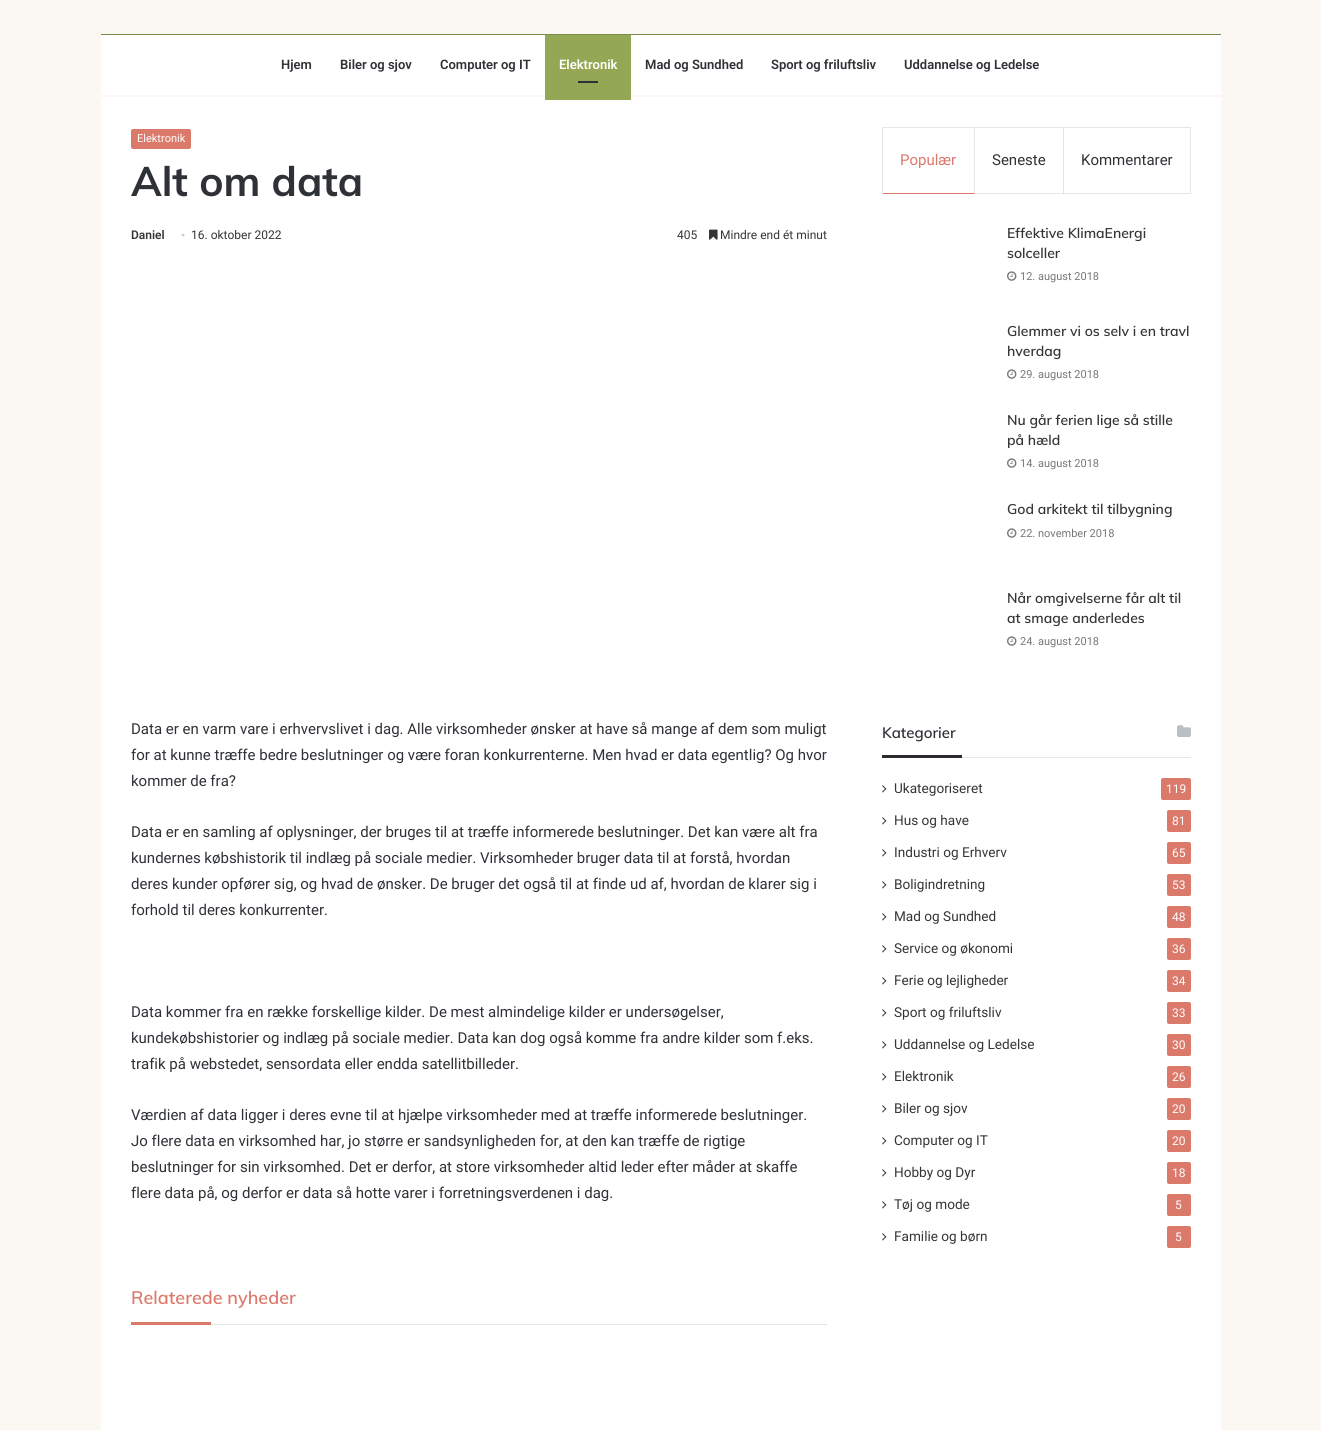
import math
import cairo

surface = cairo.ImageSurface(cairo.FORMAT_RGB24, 1321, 1430)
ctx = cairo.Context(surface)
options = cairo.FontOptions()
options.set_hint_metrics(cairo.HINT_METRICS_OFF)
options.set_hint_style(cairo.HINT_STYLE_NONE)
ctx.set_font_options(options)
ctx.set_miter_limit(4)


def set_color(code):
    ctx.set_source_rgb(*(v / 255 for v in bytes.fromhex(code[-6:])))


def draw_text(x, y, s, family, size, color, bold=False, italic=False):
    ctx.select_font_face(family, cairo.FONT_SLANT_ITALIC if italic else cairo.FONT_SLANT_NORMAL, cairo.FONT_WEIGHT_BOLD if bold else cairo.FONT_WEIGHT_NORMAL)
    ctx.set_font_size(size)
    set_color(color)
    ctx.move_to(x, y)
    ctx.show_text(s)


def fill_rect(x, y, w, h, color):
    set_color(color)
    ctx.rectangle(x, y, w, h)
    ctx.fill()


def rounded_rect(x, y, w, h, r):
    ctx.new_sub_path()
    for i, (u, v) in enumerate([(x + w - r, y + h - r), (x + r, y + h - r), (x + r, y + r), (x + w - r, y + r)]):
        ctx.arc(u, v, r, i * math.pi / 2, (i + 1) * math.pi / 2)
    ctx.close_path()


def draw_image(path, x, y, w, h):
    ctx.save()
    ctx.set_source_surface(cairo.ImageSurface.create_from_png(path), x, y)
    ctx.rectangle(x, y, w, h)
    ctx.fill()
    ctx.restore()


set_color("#fbf8f3")
ctx.paint()
fill_rect(101, 97, 1120, 1333, "#ffffff")
fill_rect(101, 35, 1120, 60, "#ffffff")
fill_rect(101, 34, 1120, 1, "#7b8e47")
draw_text(281, 69, "Hjem", "Roboto SemiBold", 13, "#2e3136")
draw_text(340, 69, "Biler og sjov", "Roboto SemiBold", 13, "#2e3136")
draw_text(440, 69, "Computer og IT", "Roboto SemiBold", 13, "#2e3136")
fill_rect(545, 35, 86, 65, "#94a754")
draw_text(559, 69, "Elektronik", "Roboto SemiBold", 13, "#ffffff")
fill_rect(578, 81, 20, 2, "#2c2f34")
draw_text(645, 69, "Mad og Sundhed", "Roboto SemiBold", 13, "#2e3136")
draw_text(771, 69, "Sport og friluftsliv", "Roboto SemiBold", 13, "#2e3136")
draw_text(904, 69, "Uddannelse og Ledelse", "Roboto SemiBold", 13, "#2e3136")
set_color("#db796b")
rounded_rect(131, 129, 60, 20, 2)
ctx.fill()
draw_text(137, 142, "Elektronik", "Roboto", 11, "#ffffff")
draw_text(131, 196, "Alt om data", "Muli", 41, "#2e3136", bold=True)
draw_text(131, 239, "Daniel", "Roboto SemiBold", 12, "#353535")
draw_text(181, 239, "•", "Liberation Serif", 12, "#cdcdcd")
draw_text(191, 239, "16. oktober 2022", "Roboto", 12, "#353535")
draw_text(677, 239, "405", "Roboto", 12, "#353535")
draw_image("assets/img1.png", 709, 229, 9, 11)
draw_text(720, 239, "Mindre end ét minut", "Roboto", 12, "#353535")
draw_text(131, 734, "Data er en varm vare i erhvervslivet i dag. Alle virksomheder ønsker at have så mange af dem som muligt", "Roboto", 15, "#2e3136")
draw_text(131, 760, "for at kunne træffe bedre beslutninger og være foran konkurrenterne. Men hvad er data egentlig? Og hvor", "Roboto", 15, "#2e3136")
draw_text(131, 786, "kommer de fra?", "Roboto", 15, "#2e3136")
draw_text(131, 837, "Data er en samling af oplysninger, der bruges til at træffe informerede beslutninger. Det kan være alt fra", "Roboto", 15, "#2e3136")
draw_text(131, 863, "kundernes købshistorik til indlæg på sociale medier. Virksomheder bruger data til at forstå, hvordan", "Roboto", 15, "#2e3136")
draw_text(131, 889, "deres kunder opfører sig, og hvad de ønsker. De bruger det også til at finde ud af, hvordan de klarer sig i", "Roboto", 15, "#2e3136")
draw_text(131, 915, "forhold til deres konkurrenter.", "Roboto", 15, "#2e3136")
draw_text(131, 1017, "Data kommer fra en række forskellige kilder. De mest almindelige kilder er undersøgelser,", "Roboto", 15, "#2e3136")
draw_text(131, 1043, "kundekøbshistorier og indlæg på sociale medier. Data kan dog også komme fra andre kilder som f.eks.", "Roboto", 15, "#2e3136")
draw_text(131, 1069, "trafik på webstedet, sensordata eller endda satellitbilleder.", "Roboto", 15, "#2e3136")
draw_text(131, 1120, "Værdien af data ligger i deres evne til at hjælpe virksomheder med at træffe informerede beslutninger.", "Roboto", 15, "#2e3136")
draw_text(131, 1146, "Jo flere data en virksomhed har, jo større er sandsynligheden for, at den kan træffe de rigtige", "Roboto", 15, "#2e3136")
draw_text(131, 1172, "beslutninger for sin virksomhed. Det er derfor, at store virksomheder altid leder efter måder at skaffe", "Roboto", 15, "#2e3136")
draw_text(131, 1198, "flere data på, og derfor er data så hotte varer i forretningsverdenen i dag.", "Roboto", 15, "#2e3136")
fill_rect(211, 1324, 616, 1, "#e6e6e6")
draw_text(131, 1304, "Relaterede nyheder", "Muli SemiBold", 18, "#db796b")
fill_rect(131, 1322, 80, 3, "#db796b")
ctx.rectangle(882.5, 127.5, 308, 66)
set_color("#e6e6e6")
ctx.set_line_width(1)
ctx.stroke()
fill_rect(883, 193, 92, 1, "#ffffff")
set_color("#e6e6e6")
ctx.new_path()
ctx.move_to(975, 128)
ctx.line_to(975, 194)
ctx.line_to(974, 193)
ctx.line_to(974, 128)
ctx.close_path()
ctx.fill()
set_color("#db796b")
ctx.new_path()
ctx.move_to(975, 194)
ctx.line_to(883, 194)
ctx.line_to(883, 193)
ctx.line_to(974, 193)
ctx.close_path()
ctx.fill()
draw_text(900, 165, "Populær", "Roboto", 15, "#db796b")
ctx.set_source_rgba(0.012, 0.012, 0.012, 0.1)
ctx.new_path()
ctx.move_to(1064, 128)
ctx.line_to(1064, 194)
ctx.line_to(1063, 193)
ctx.line_to(1063, 128)
ctx.close_path()
ctx.fill()
draw_text(992, 165, "Seneste", "Roboto", 15, "#2e3136")
draw_text(1081, 165, "Kommentarer", "Roboto", 15, "#2e3136")
draw_text(1007, 238, "Effektive KlimaEnergi", "Muli SemiBold", 14, "#353535")
draw_text(1007, 258, "solceller", "Muli SemiBold", 14, "#353535")
draw_image("assets/img2.png", 1007, 271, 10, 10)
draw_text(1020, 280, "12. august 2018", "Roboto", 11, "#777777")
draw_text(1007, 336, "Glemmer vi os selv i en travl", "Muli SemiBold", 14, "#353535")
draw_text(1007, 356, "hverdag", "Muli SemiBold", 14, "#353535")
draw_image("assets/img2.png", 1007, 369, 10, 10)
draw_text(1020, 378, "29. august 2018", "Roboto", 11, "#777777")
draw_text(1007, 425, "Nu går ferien lige så stille", "Muli SemiBold", 14, "#353535")
draw_text(1007, 445, "på hæld", "Muli SemiBold", 14, "#353535")
draw_image("assets/img2.png", 1007, 458, 10, 10)
draw_text(1020, 467, "14. august 2018", "Roboto", 11, "#777777")
draw_text(1007, 514, "God arkitekt til tilbygning", "Muli SemiBold", 14, "#353535")
draw_image("assets/img2.png", 1007, 528, 10, 10)
draw_text(1020, 537, "22. november 2018", "Roboto", 11, "#777777")
draw_text(1007, 603, "Når omgivelserne får alt til", "Muli SemiBold", 14, "#353535")
draw_text(1007, 623, "at smage anderledes", "Muli SemiBold", 14, "#353535")
draw_image("assets/img2.png", 1007, 636, 10, 10)
draw_text(1020, 645, "24. august 2018", "Roboto", 11, "#777777")
fill_rect(962, 757, 229, 1, "#e6e6e6")
draw_text(882, 738, "Kategorier", "Muli SemiBold", 15, "#2e3136")
draw_image("assets/img3.png", 1177, 725, 14, 12)
fill_rect(882, 755, 80, 3, "#292b2f")
draw_image("assets/img4.png", 882, 785, 5, 8)
draw_text(894, 793, "Ukategoriseret", "Roboto", 13.6, "#353535")
set_color("#db796b")
rounded_rect(1161, 778, 30, 22, 2)
ctx.fill()
draw_text(1166, 793, "119", "Roboto", 12, "#ffffff")
draw_image("assets/img4.png", 882, 817, 5, 8)
draw_text(894, 825, "Hus og have", "Roboto", 13.6, "#353535")
set_color("#db796b")
rounded_rect(1167, 810, 24, 22, 2)
ctx.fill()
draw_text(1172, 825, "81", "Roboto", 12, "#ffffff")
draw_image("assets/img4.png", 882, 849, 5, 8)
draw_text(894, 857, "Industri og Erhverv", "Roboto", 13.6, "#353535")
set_color("#db796b")
rounded_rect(1167, 842, 24, 22, 2)
ctx.fill()
draw_text(1172, 857, "65", "Roboto", 12, "#ffffff")
draw_image("assets/img4.png", 882, 881, 5, 8)
draw_text(894, 889, "Boligindretning", "Roboto", 13.6, "#353535")
set_color("#db796b")
rounded_rect(1167, 874, 24, 22, 2)
ctx.fill()
draw_text(1172, 889, "53", "Roboto", 12, "#ffffff")
draw_image("assets/img4.png", 882, 913, 5, 8)
draw_text(894, 921, "Mad og Sundhed", "Roboto", 13.6, "#353535")
set_color("#db796b")
rounded_rect(1167, 906, 24, 22, 2)
ctx.fill()
draw_text(1172, 921, "48", "Roboto", 12, "#ffffff")
draw_image("assets/img4.png", 882, 945, 5, 8)
draw_text(894, 953, "Service og økonomi", "Roboto", 13.6, "#353535")
set_color("#db796b")
rounded_rect(1167, 938, 24, 22, 2)
ctx.fill()
draw_text(1172, 953, "36", "Roboto", 12, "#ffffff")
draw_image("assets/img4.png", 882, 977, 5, 8)
draw_text(894, 985, "Ferie og lejligheder", "Roboto", 13.6, "#353535")
set_color("#db796b")
rounded_rect(1167, 970, 24, 22, 2)
ctx.fill()
draw_text(1172, 985, "34", "Roboto", 12, "#ffffff")
draw_image("assets/img4.png", 882, 1009, 5, 8)
draw_text(894, 1017, "Sport og friluftsliv", "Roboto", 13.6, "#353535")
set_color("#db796b")
rounded_rect(1167, 1002, 24, 22, 2)
ctx.fill()
draw_text(1172, 1017, "33", "Roboto", 12, "#ffffff")
draw_image("assets/img4.png", 882, 1041, 5, 8)
draw_text(894, 1049, "Uddannelse og Ledelse", "Roboto", 13.6, "#353535")
set_color("#db796b")
rounded_rect(1167, 1034, 24, 22, 2)
ctx.fill()
draw_text(1172, 1049, "30", "Roboto", 12, "#ffffff")
draw_image("assets/img4.png", 882, 1073, 5, 8)
draw_text(894, 1081, "Elektronik", "Roboto", 13.6, "#353535")
set_color("#db796b")
rounded_rect(1167, 1066, 24, 22, 2)
ctx.fill()
draw_text(1172, 1081, "26", "Roboto", 12, "#ffffff")
draw_image("assets/img4.png", 882, 1105, 5, 8)
draw_text(894, 1113, "Biler og sjov", "Roboto", 13.6, "#353535")
set_color("#db796b")
rounded_rect(1167, 1098, 24, 22, 2)
ctx.fill()
draw_text(1172, 1113, "20", "Roboto", 12, "#ffffff")
draw_image("assets/img4.png", 882, 1137, 5, 8)
draw_text(894, 1145, "Computer og IT", "Roboto", 13.6, "#353535")
set_color("#db796b")
rounded_rect(1167, 1130, 24, 22, 2)
ctx.fill()
draw_text(1172, 1145, "20", "Roboto", 12, "#ffffff")
draw_image("assets/img4.png", 882, 1169, 5, 8)
draw_text(894, 1177, "Hobby og Dyr", "Roboto", 13.6, "#353535")
set_color("#db796b")
rounded_rect(1167, 1162, 24, 22, 2)
ctx.fill()
draw_text(1172, 1177, "18", "Roboto", 12, "#ffffff")
draw_image("assets/img4.png", 882, 1201, 5, 8)
draw_text(894, 1209, "Tøj og mode", "Roboto", 13.6, "#353535")
set_color("#db796b")
rounded_rect(1167, 1194, 24, 22, 2)
ctx.fill()
draw_text(1175, 1209, "5", "Roboto", 12, "#ffffff")
draw_image("assets/img4.png", 882, 1233, 5, 8)
draw_text(894, 1241, "Familie og børn", "Roboto", 13.6, "#353535")
set_color("#db796b")
rounded_rect(1167, 1226, 24, 22, 2)
ctx.fill()
draw_text(1175, 1241, "5", "Roboto", 12, "#ffffff")
surface.write_to_png("output.png")
